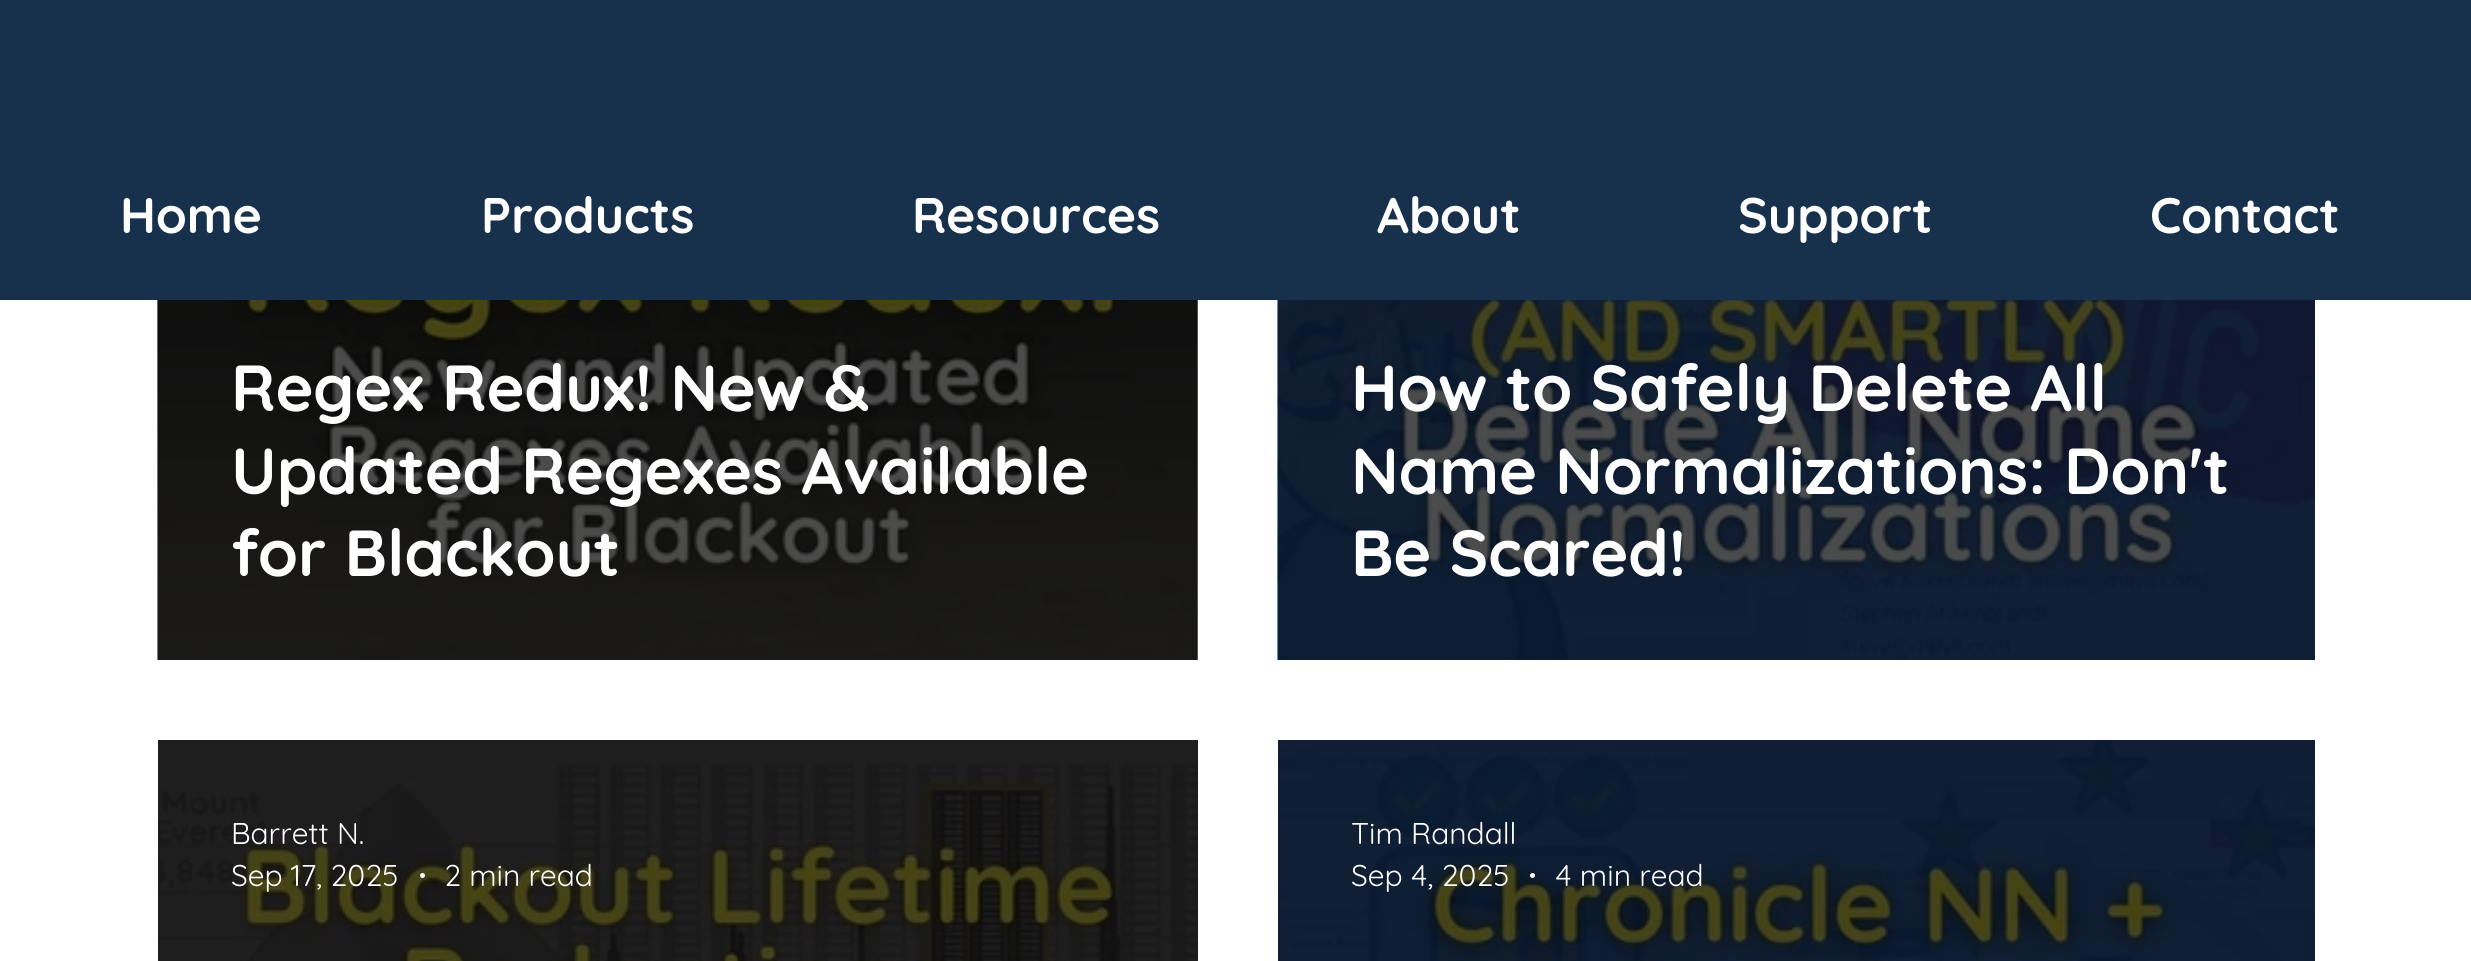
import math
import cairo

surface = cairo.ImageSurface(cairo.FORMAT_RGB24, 2471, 961)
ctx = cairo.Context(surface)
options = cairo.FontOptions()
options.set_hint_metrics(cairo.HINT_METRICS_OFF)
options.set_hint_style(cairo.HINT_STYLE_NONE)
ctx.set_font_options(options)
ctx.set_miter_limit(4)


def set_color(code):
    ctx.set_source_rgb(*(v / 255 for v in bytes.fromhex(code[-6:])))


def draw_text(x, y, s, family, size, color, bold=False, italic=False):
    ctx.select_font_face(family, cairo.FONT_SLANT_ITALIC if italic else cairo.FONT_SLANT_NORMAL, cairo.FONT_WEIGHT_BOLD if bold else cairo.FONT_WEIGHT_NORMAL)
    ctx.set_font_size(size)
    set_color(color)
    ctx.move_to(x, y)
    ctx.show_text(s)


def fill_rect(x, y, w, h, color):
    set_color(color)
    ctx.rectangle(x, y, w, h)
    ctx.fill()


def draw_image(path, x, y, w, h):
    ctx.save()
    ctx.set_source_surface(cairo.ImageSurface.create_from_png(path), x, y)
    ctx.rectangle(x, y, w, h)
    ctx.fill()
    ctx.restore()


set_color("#ffffff")
ctx.paint()
fill_rect(0, 0, 2471, 300, "#17314d")
draw_text(120, 233, "Home", "Quicksand", 50, "#ffffff", bold=True)
draw_text(481, 233, "Products", "Quicksand", 50, "#ffffff", bold=True)
draw_text(912, 233, "Resources", "Quicksand", 50, "#ffffff", bold=True)
draw_text(1377, 233, "About", "Quicksand", 50, "#ffffff", bold=True)
draw_text(1738, 233, "Support", "Quicksand", 50, "#ffffff", bold=True)
draw_text(2150, 233, "Contact", "Quicksand", 50, "#ffffff", bold=True)
draw_image("assets/img1.png", 157, 300, 1041, 360)
draw_image("assets/img2.png", 157, 300, 1041, 360)
draw_text(231, 411, "Regex Redux! New &", "Quicksand", 65, "#ffffff", bold=True)
draw_text(231, 494, "Updated Regexes Available", "Quicksand", 65, "#ffffff", bold=True)
draw_text(231, 576, "for Blackout", "Quicksand", 65, "#ffffff", bold=True)
draw_image("assets/img3.png", 1277, 300, 1, 360)
draw_image("assets/img4.png", 1277, 300, 1038, 360)
draw_text(1351, 411, "How to Safely Delete All", "Quicksand", 65, "#ffffff", bold=True)
draw_text(1351, 494, "Name Normalizations: Don't", "Quicksand", 65, "#ffffff", bold=True)
draw_text(1351, 576, "Be Scared!", "Quicksand", 65, "#ffffff", bold=True)
draw_image("assets/img5.png", 158, 740, 1040, 221)
draw_text(231, 844, "Barrett N.", "Quicksand", 30, "#ffffff")
draw_text(231, 886, "Sep 17, 2025", "Quicksand", 30, "#ffffff")
ctx.new_path()
ctx.arc(422.5, 875.5, 2.5, 0, 2 * math.pi)
ctx.fill()
draw_text(444, 886, "2 min read", "Quicksand", 30, "#ffffff")
draw_image("assets/img6.png", 1278, 740, 1037, 221)
draw_text(1351, 844, "Tim Randall", "Quicksand", 30, "#ffffff")
draw_text(1351, 886, "Sep 4, 2025", "Quicksand", 30, "#ffffff")
ctx.new_path()
ctx.arc(1532.5, 875.5, 2.5, 0, 2 * math.pi)
ctx.fill()
draw_text(1555, 886, "4 min read", "Quicksand", 30, "#ffffff")
surface.write_to_png("output.png")
